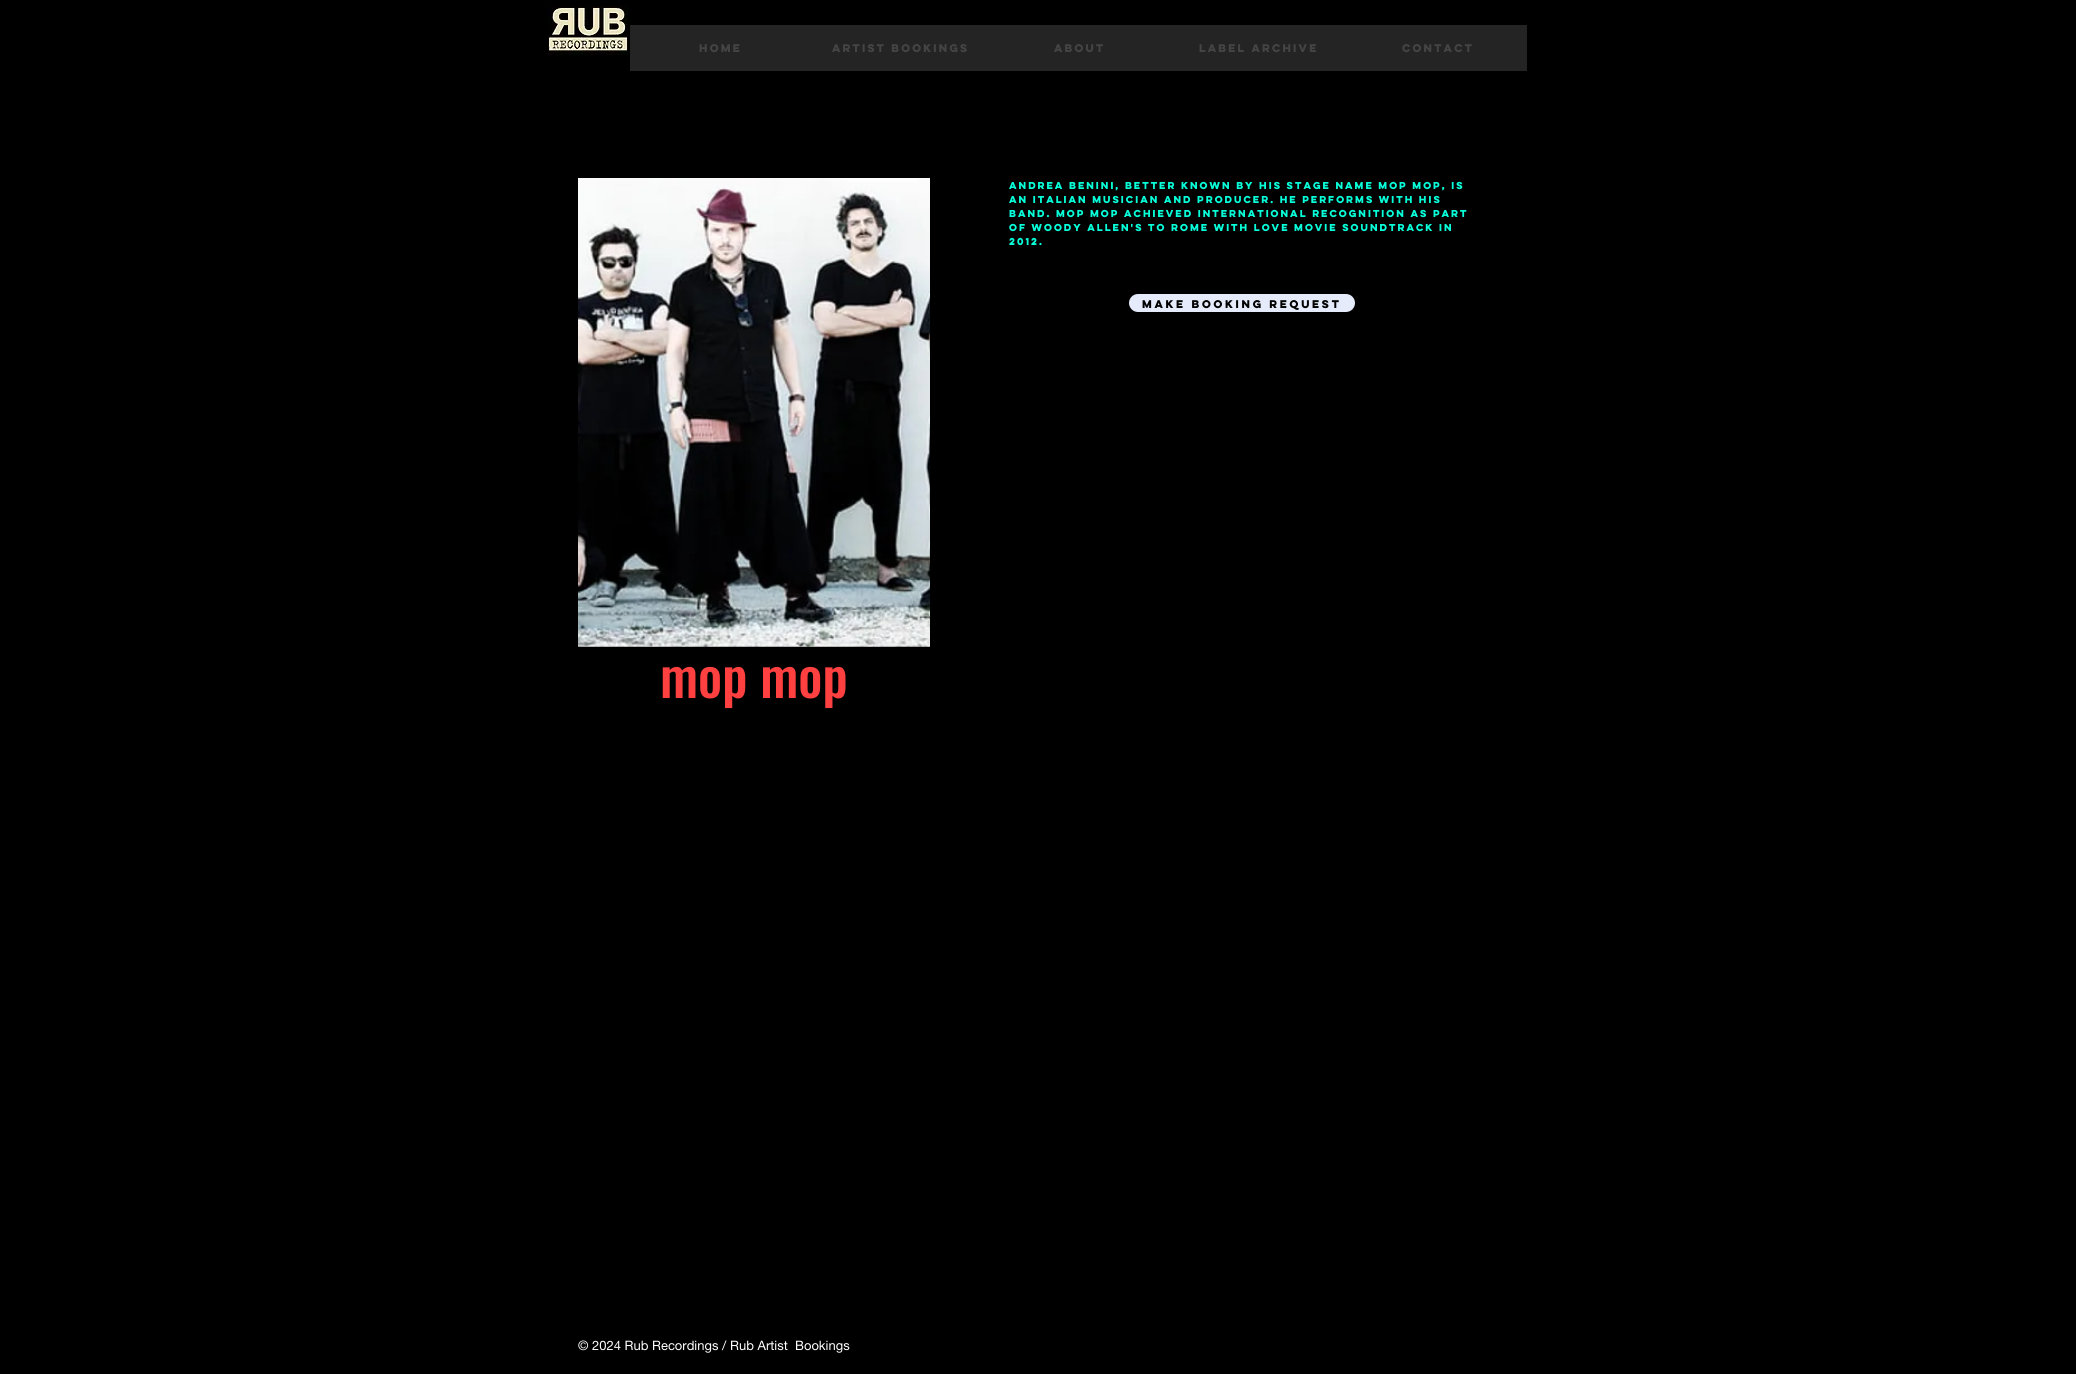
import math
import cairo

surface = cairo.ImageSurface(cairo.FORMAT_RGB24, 2076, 1374)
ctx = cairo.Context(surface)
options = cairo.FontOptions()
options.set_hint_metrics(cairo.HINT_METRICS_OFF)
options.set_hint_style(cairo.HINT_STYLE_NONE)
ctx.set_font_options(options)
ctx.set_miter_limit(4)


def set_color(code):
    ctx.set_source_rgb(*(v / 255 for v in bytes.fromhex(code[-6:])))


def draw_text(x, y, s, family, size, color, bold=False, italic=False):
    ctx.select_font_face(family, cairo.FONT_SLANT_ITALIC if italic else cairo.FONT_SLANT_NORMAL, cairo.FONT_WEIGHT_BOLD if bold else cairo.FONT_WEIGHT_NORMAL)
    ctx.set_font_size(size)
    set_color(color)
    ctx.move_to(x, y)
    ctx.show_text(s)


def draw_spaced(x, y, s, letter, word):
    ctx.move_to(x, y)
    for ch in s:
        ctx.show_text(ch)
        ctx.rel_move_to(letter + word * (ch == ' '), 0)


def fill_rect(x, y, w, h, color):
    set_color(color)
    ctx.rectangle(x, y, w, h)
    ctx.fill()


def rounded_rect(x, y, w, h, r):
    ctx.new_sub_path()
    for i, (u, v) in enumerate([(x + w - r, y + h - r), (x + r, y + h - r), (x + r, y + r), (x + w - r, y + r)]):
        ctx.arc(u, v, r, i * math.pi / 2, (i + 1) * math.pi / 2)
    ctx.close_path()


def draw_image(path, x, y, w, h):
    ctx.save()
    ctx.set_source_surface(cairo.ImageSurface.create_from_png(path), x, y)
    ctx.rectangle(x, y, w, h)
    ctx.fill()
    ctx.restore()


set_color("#000000")
ctx.paint()
draw_image("assets/img1.png", 548, 5, 80, 50)
fill_rect(630, 25, 897, 46, "#242424")
draw_text(699, 52, "HOME", "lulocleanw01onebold", 10, "#444444", bold=True)
draw_text(832, 52, "ARTIST BOOKINGS", "lulocleanw01onebold", 10, "#444444", bold=True)
draw_text(1054, 52, "ABOUT", "lulocleanw01onebold", 10, "#444444", bold=True)
draw_text(1199, 52, "LABEL ARCHIVE", "lulocleanw01onebold", 10, "#444444", bold=True)
draw_text(1402, 52, "CONTACT", "lulocleanw01onebold", 10, "#444444", bold=True)
draw_image("assets/img2.png", 578, 178, 352, 469)
draw_text(1009, 189, "Andrea Benini, better known by his stage name Mop Mop, is", "lulocleanw01onebold", 9, "#07ffda", bold=True)
draw_text(1009, 203, "an Italian musician and producer. He performs with his", "lulocleanw01onebold", 9, "#07ffda", bold=True)
draw_text(1009, 217, "band. Mop Mop achieved International recognition as part", "lulocleanw01onebold", 9, "#07ffda", bold=True)
draw_text(1009, 231, "of Woody Allen's To Rome With Love movie soundtrack in", "lulocleanw01onebold", 9, "#07ffda", bold=True)
draw_text(1009, 245, "2012.", "lulocleanw01onebold", 9, "#07ffda", bold=True)
set_color("#e5ebfa")
rounded_rect(1129, 294, 226, 18, 9)
ctx.fill()
ctx.set_font_size(10)
set_color("#000000")
draw_spaced(1142, 308, "make booking request", 0.5, 0)
draw_text(660, 698, "mop mop", "Oswald Medium", 53, "#ff4040")
draw_text(578, 1350, "© 2024 Rub Recordings / Rub Artist  Bookings", "helvetica neue", 13, "#ffffff")
surface.write_to_png("output.png")
